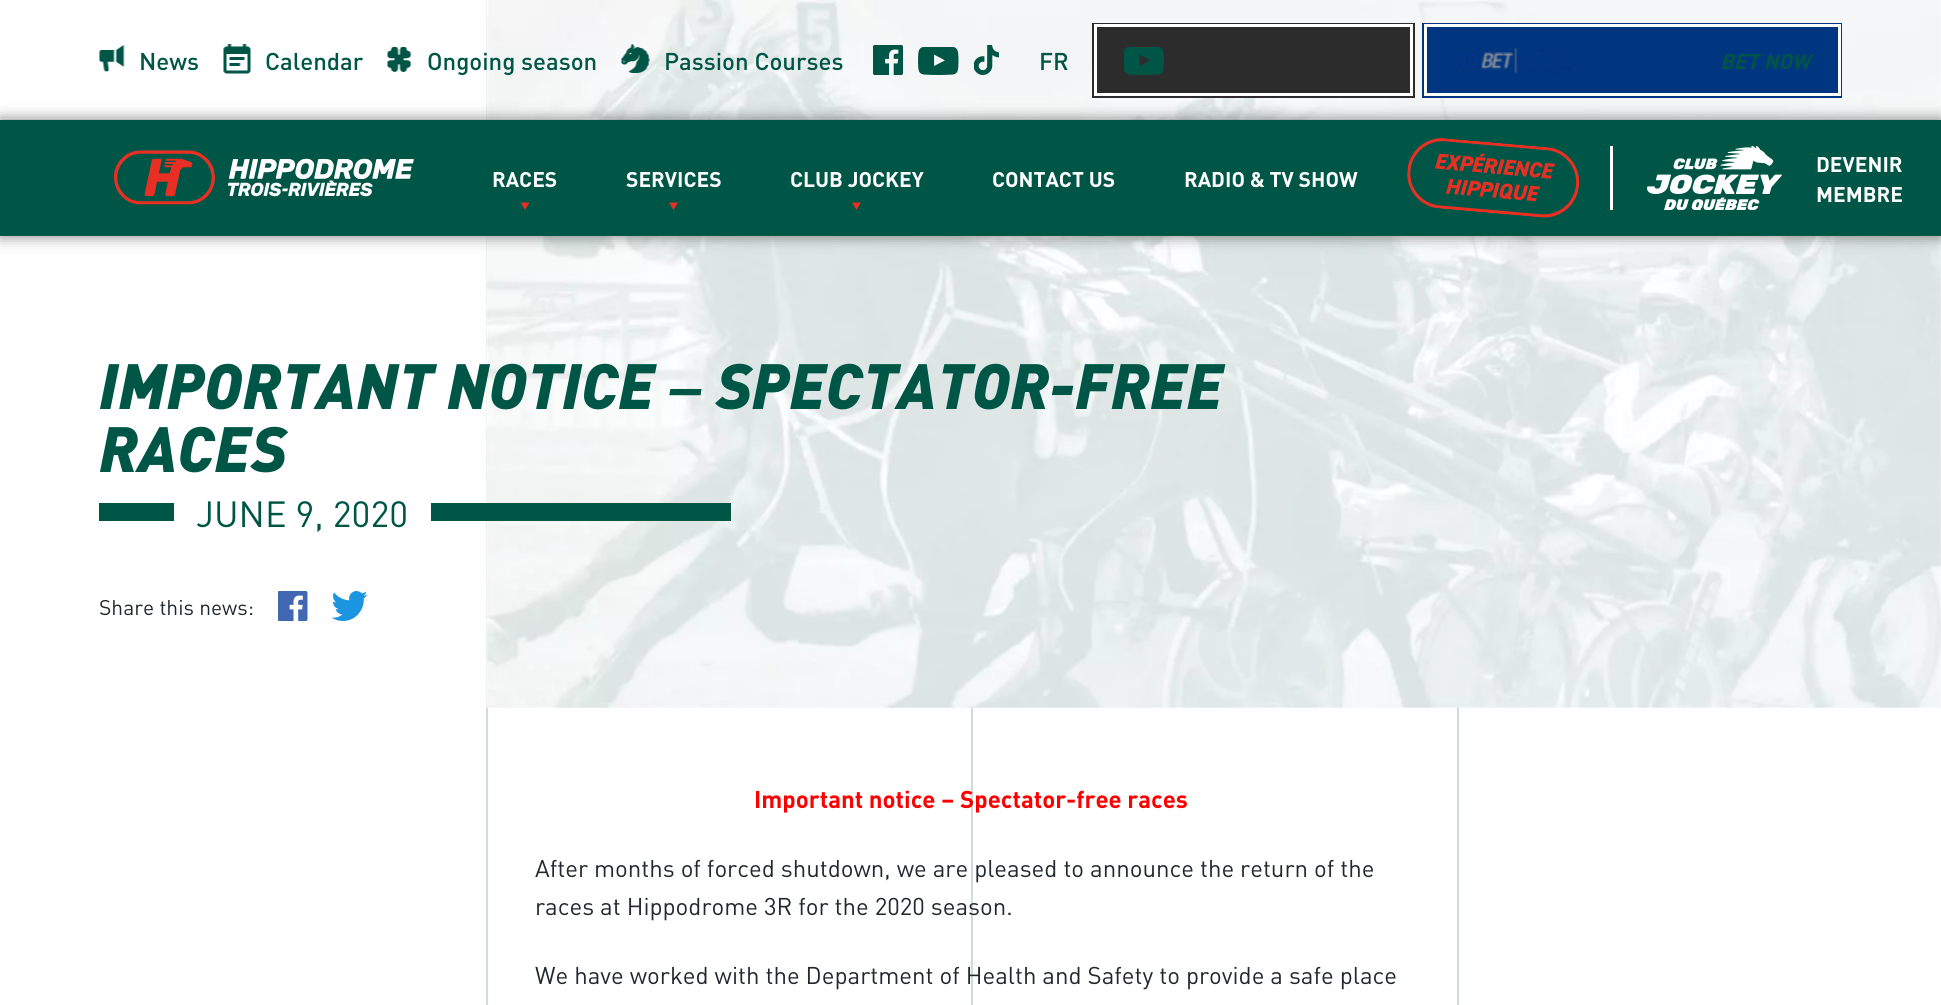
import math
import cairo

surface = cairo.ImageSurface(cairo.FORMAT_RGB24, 1941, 1005)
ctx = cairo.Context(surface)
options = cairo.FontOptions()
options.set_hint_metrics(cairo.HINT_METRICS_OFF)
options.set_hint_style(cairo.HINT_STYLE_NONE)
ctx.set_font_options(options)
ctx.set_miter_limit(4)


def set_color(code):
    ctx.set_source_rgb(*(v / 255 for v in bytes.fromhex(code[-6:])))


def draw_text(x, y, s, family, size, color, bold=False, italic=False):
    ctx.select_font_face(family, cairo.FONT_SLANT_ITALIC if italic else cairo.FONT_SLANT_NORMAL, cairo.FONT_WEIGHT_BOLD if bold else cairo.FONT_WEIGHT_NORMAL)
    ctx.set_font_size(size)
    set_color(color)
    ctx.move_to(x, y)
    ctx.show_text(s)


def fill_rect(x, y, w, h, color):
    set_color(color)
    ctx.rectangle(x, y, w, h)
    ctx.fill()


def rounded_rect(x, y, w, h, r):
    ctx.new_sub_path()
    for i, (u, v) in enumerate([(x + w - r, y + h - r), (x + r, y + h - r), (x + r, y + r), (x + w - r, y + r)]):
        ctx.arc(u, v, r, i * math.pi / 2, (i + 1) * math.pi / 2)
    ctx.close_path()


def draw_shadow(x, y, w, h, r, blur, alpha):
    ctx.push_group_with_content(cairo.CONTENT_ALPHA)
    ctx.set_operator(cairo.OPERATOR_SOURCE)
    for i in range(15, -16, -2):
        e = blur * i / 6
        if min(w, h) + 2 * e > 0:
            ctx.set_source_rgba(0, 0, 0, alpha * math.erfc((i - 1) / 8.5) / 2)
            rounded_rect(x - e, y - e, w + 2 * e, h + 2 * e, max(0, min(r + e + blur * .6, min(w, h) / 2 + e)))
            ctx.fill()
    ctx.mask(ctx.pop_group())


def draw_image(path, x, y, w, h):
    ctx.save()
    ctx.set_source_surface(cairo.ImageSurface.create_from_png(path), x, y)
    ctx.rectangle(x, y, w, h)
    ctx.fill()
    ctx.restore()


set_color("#ffffff")
ctx.paint()
draw_image("assets/img1.png", 99, 45, 26, 27)
draw_text(139, 70, "News", "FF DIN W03 Medium", 24, "#005646")
draw_image("assets/img2.png", 223, 44, 28, 30)
draw_text(265, 70, "Calendar", "FF DIN W03 Medium", 24, "#005646")
draw_image("assets/img3.png", 387, 47, 25, 25)
fill_rect(486, 0, 2, 1005, "#ccddda")
draw_text(754, 808, "Important notice – Spectator-free races", "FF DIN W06", 24, "#ff0000", bold=True)
draw_text(535, 877, "After months of forced shutdown, we are pleased to announce the return of the", "FF DIN W06", 24, "#22282f")
draw_text(535, 915, "races at Hippodrome 3R for the 2020 season.", "FF DIN W06", 24, "#22282f")
draw_text(535, 984, "We have worked with the Department of Health and Safety to provide a safe place", "FF DIN W06", 24, "#22282f")
ctx.set_source_rgba(0, 0.337, 0.275, 0.2)
ctx.rectangle(971, 707, 2, 298)
ctx.fill()
fill_rect(1457, 707, 2, 298, "#ccddda")
draw_image("assets/img13.png", 485, 0, 1456, 708)
draw_text(427, 70, "Ongoing season", "FF DIN W03 Medium", 24, "#005646")
draw_image("assets/img4.png", 621, 44, 29, 29)
draw_text(664, 70, "Passion Courses", "FF DIN W03 Medium", 24, "#005646")
draw_image("assets/img5.png", 873, 45, 30, 30)
draw_image("assets/img6.png", 918, 47, 41, 28)
draw_image("assets/img7.png", 974, 45, 25, 30)
draw_text(1039, 70, "FR", "FF DIN W03 Medium", 24, "#005646")
fill_rect(1092, 23, 323, 75, "#2c2c2c")
draw_image("assets/img8.png", 1124, 47, 40, 28)
ctx.rectangle(1095.5, 25.5, 316, 69)
set_color("#ffffff")
ctx.set_line_width(3)
ctx.stroke()
fill_rect(1422, 23, 420, 75, "#003580")
draw_image("assets/img9.png", 1457, 47, 120, 27)
ctx.rectangle(1425.5, 25.5, 414, 69)
set_color("#ffffff")
ctx.stroke()
draw_text(1720, 69, "BET NOW", "FF DIN W06", 21, "#005646", bold=True, italic=True)
set_color("#000000")
draw_shadow(0, 120, 1941, 116, 0, 7.5, 0.51)
fill_rect(0, 120, 1941, 116, "#005646")
draw_image("assets/img10.png", 114, 150, 300, 55)
draw_text(492, 187, "RACES", "FF DIN W06", 21, "#ffffff", bold=True)
set_color("#e73023")
ctx.new_path()
ctx.move_to(520.5, 202.5)
ctx.line_to(529.5, 202.5)
ctx.line_to(525, 210)
ctx.close_path()
ctx.fill()
draw_text(626, 187, "SERVICES", "FF DIN W06", 21, "#ffffff", bold=True)
set_color("#e73023")
ctx.new_path()
ctx.move_to(669, 202.5)
ctx.line_to(678, 202.5)
ctx.line_to(673.5, 210)
ctx.close_path()
ctx.fill()
draw_text(790, 187, "CLUB JOCKEY", "FF DIN W06", 21, "#ffffff", bold=True)
set_color("#e73023")
ctx.new_path()
ctx.move_to(852, 202.5)
ctx.line_to(861, 202.5)
ctx.line_to(856.5, 210)
ctx.close_path()
ctx.fill()
draw_text(992, 187, "CONTACT US", "FF DIN W06", 21, "#ffffff", bold=True)
draw_text(1184, 187, "RADIO & TV SHOW", "FF DIN W06", 21, "#ffffff", bold=True)
draw_image("assets/img11.png", 1407, 138, 173, 80)
fill_rect(1610, 146, 3, 64, "#ffffff")
draw_image("assets/img12.png", 1647, 146, 135, 64)
draw_text(1816, 172, "DEVENIR", "FF DIN W06", 21, "#ffffff", bold=True)
draw_text(1816, 202, "MEMBRE", "FF DIN W06", 21, "#ffffff", bold=True)
draw_text(99, 409, "IMPORTANT NOTICE", "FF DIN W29 Black", 63, "#005646", italic=True)
draw_text(668, 409, "–", "Liberation Sans", 63, "#005646", bold=True, italic=True)
draw_text(716, 409, "SPECTATOR-FREE", "FF DIN W29 Black", 63, "#005646", italic=True)
draw_text(99, 472, "RACES", "FF DIN W29 Black", 63, "#005646", italic=True)
fill_rect(99, 503, 75, 18, "#005646")
draw_text(196, 527, "JUNE 9, 2020", "FF DIN W06", 36, "#005646")
fill_rect(431, 503, 300, 18, "#005646")
draw_text(99, 615, "Share this news:", "FF DIN W06", 21, "#22282f")
draw_image("assets/img14.png", 278, 591, 30, 30)
draw_image("assets/img15.png", 332, 591, 36, 30)
surface.write_to_png("output.png")
